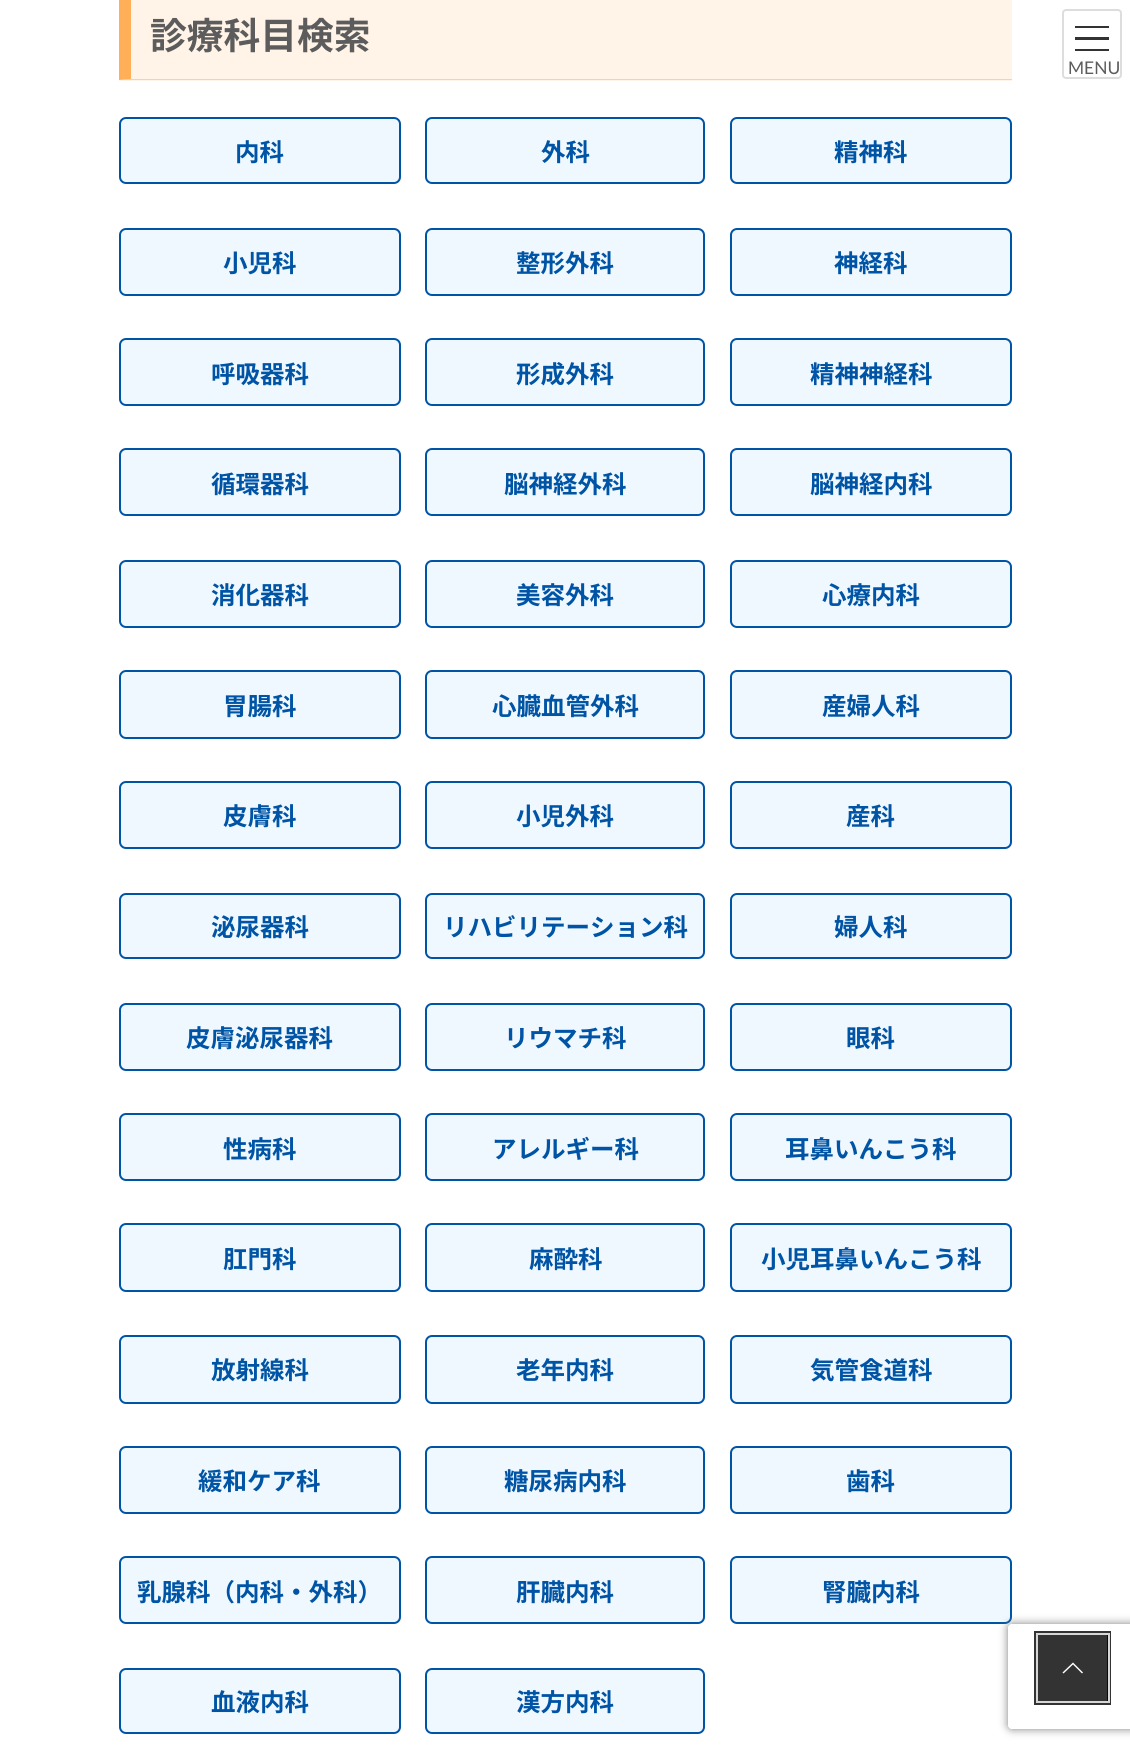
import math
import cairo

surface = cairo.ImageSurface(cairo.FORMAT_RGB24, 1130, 1752)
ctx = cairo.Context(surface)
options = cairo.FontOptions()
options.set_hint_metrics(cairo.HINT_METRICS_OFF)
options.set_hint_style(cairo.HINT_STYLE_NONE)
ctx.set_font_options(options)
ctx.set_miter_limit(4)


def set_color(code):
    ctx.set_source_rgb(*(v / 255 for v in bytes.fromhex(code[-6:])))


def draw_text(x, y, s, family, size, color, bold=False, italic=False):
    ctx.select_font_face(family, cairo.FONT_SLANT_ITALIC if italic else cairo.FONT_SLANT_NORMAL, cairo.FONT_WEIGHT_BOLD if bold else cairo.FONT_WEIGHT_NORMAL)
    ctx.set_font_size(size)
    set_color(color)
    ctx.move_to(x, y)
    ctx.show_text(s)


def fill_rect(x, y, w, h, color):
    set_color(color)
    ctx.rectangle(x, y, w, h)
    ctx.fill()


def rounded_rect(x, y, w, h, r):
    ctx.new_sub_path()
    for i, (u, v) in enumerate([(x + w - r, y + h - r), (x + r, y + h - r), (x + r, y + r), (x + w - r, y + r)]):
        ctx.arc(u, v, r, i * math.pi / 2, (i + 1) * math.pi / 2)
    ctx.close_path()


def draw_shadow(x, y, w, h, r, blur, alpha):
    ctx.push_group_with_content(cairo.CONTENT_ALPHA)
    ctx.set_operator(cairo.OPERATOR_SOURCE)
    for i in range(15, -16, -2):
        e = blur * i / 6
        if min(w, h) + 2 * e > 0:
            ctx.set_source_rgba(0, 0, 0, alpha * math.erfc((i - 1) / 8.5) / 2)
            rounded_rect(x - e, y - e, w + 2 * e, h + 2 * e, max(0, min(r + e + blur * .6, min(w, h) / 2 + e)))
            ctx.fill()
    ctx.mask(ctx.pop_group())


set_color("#ffffff")
ctx.paint()
fill_rect(119, 0, 893, 81, "#fff4e7")
set_color("#e0d7cb")
ctx.new_path()
ctx.move_to(1012, 80)
ctx.line_to(119, 80)
ctx.line_to(131, 79)
ctx.line_to(1012, 79)
ctx.close_path()
ctx.fill()
set_color("#ffaf58")
ctx.new_path()
ctx.move_to(119, 80)
ctx.line_to(119, -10)
ctx.line_to(131, -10)
ctx.line_to(131, 79)
ctx.close_path()
ctx.fill()
draw_text(150, 49, "診療科目検索", "Noto Sans JP", 36.75, "#5c5c5c", bold=True)
set_color("#f0f8ff")
rounded_rect(120, 118, 280, 65, 6)
ctx.fill_preserve()
set_color("#0054a5")
ctx.stroke()
draw_text(235, 161, "内科", "Noto Sans JP", 24.5, "#0054a5", bold=True)
set_color("#f0f8ff")
rounded_rect(426, 118, 278, 65, 6)
ctx.fill_preserve()
set_color("#0054a5")
ctx.stroke()
draw_text(541, 161, "外科", "Noto Sans JP", 24.5, "#0054a5", bold=True)
set_color("#f0f8ff")
rounded_rect(731, 118, 280, 65, 6)
ctx.fill_preserve()
set_color("#0054a5")
ctx.stroke()
draw_text(834, 161, "精神科", "Noto Sans JP", 24.5, "#0054a5", bold=True)
set_color("#f0f8ff")
rounded_rect(120, 229, 280, 66, 6)
ctx.fill_preserve()
set_color("#0054a5")
ctx.stroke()
draw_text(223, 272, "小児科", "Noto Sans JP", 24.5, "#0054a5", bold=True)
set_color("#f0f8ff")
rounded_rect(426, 229, 278, 66, 6)
ctx.fill_preserve()
set_color("#0054a5")
ctx.stroke()
draw_text(516, 272, "整形外科", "Noto Sans JP", 24.5, "#0054a5", bold=True)
set_color("#f0f8ff")
rounded_rect(731, 229, 280, 66, 6)
ctx.fill_preserve()
set_color("#0054a5")
ctx.stroke()
draw_text(834, 272, "神経科", "Noto Sans JP", 24.5, "#0054a5", bold=True)
set_color("#f0f8ff")
rounded_rect(120, 339, 280, 66, 6)
ctx.fill_preserve()
set_color("#0054a5")
ctx.stroke()
draw_text(211, 383, "呼吸器科", "Noto Sans JP", 24.5, "#0054a5", bold=True)
set_color("#f0f8ff")
rounded_rect(426, 339, 278, 66, 6)
ctx.fill_preserve()
set_color("#0054a5")
ctx.stroke()
draw_text(516, 383, "形成外科", "Noto Sans JP", 24.5, "#0054a5", bold=True)
set_color("#f0f8ff")
rounded_rect(731, 339, 280, 66, 6)
ctx.fill_preserve()
set_color("#0054a5")
ctx.stroke()
draw_text(810, 383, "精神神経科", "Noto Sans JP", 24.5, "#0054a5", bold=True)
set_color("#f0f8ff")
rounded_rect(120, 449, 280, 66, 6)
ctx.fill_preserve()
set_color("#0054a5")
ctx.stroke()
draw_text(211, 493, "循環器科", "Noto Sans JP", 24.5, "#0054a5", bold=True)
set_color("#f0f8ff")
rounded_rect(426, 449, 278, 66, 6)
ctx.fill_preserve()
set_color("#0054a5")
ctx.stroke()
draw_text(504, 493, "脳神経外科", "Noto Sans JP", 24.5, "#0054a5", bold=True)
set_color("#f0f8ff")
rounded_rect(731, 449, 280, 66, 6)
ctx.fill_preserve()
set_color("#0054a5")
ctx.stroke()
draw_text(810, 493, "脳神経内科", "Noto Sans JP", 24.5, "#0054a5", bold=True)
set_color("#f0f8ff")
rounded_rect(120, 561, 280, 66, 6)
ctx.fill_preserve()
set_color("#0054a5")
ctx.stroke()
draw_text(211, 604, "消化器科", "Noto Sans JP", 24.5, "#0054a5", bold=True)
set_color("#f0f8ff")
rounded_rect(426, 561, 278, 66, 6)
ctx.fill_preserve()
set_color("#0054a5")
ctx.stroke()
draw_text(516, 604, "美容外科", "Noto Sans JP", 24.5, "#0054a5", bold=True)
set_color("#f0f8ff")
rounded_rect(731, 561, 280, 66, 6)
ctx.fill_preserve()
set_color("#0054a5")
ctx.stroke()
draw_text(822, 604, "心療内科", "Noto Sans JP", 24.5, "#0054a5", bold=True)
set_color("#f0f8ff")
rounded_rect(120, 671, 280, 67, 6)
ctx.fill_preserve()
set_color("#0054a5")
ctx.stroke()
draw_text(223, 715, "胃腸科", "Noto Sans JP", 24.5, "#0054a5", bold=True)
set_color("#f0f8ff")
rounded_rect(426, 671, 278, 67, 6)
ctx.fill_preserve()
set_color("#0054a5")
ctx.stroke()
draw_text(492, 715, "心臓血管外科", "Noto Sans JP", 24.5, "#0054a5", bold=True)
set_color("#f0f8ff")
rounded_rect(731, 671, 280, 67, 6)
ctx.fill_preserve()
set_color("#0054a5")
ctx.stroke()
draw_text(822, 715, "産婦人科", "Noto Sans JP", 24.5, "#0054a5", bold=True)
set_color("#f0f8ff")
rounded_rect(120, 782, 280, 66, 6)
ctx.fill_preserve()
set_color("#0054a5")
ctx.stroke()
draw_text(223, 825, "皮膚科", "Noto Sans JP", 24.5, "#0054a5", bold=True)
set_color("#f0f8ff")
rounded_rect(426, 782, 278, 66, 6)
ctx.fill_preserve()
set_color("#0054a5")
ctx.stroke()
draw_text(516, 825, "小児外科", "Noto Sans JP", 24.5, "#0054a5", bold=True)
set_color("#f0f8ff")
rounded_rect(731, 782, 280, 66, 6)
ctx.fill_preserve()
set_color("#0054a5")
ctx.stroke()
draw_text(846, 825, "産科", "Noto Sans JP", 24.5, "#0054a5", bold=True)
set_color("#f0f8ff")
rounded_rect(120, 894, 280, 64, 6)
ctx.fill_preserve()
set_color("#0054a5")
ctx.stroke()
draw_text(211, 936, "泌尿器科", "Noto Sans JP", 24.5, "#0054a5", bold=True)
set_color("#f0f8ff")
rounded_rect(426, 894, 278, 64, 6)
ctx.fill_preserve()
set_color("#0054a5")
ctx.stroke()
draw_text(443, 936, "リハビリテーション科", "Noto Sans JP", 24.5, "#0054a5", bold=True)
set_color("#f0f8ff")
rounded_rect(731, 894, 280, 64, 6)
ctx.fill_preserve()
set_color("#0054a5")
ctx.stroke()
draw_text(834, 936, "婦人科", "Noto Sans JP", 24.5, "#0054a5", bold=True)
set_color("#f0f8ff")
rounded_rect(120, 1004, 280, 66, 6)
ctx.fill_preserve()
set_color("#0054a5")
ctx.stroke()
draw_text(186, 1047, "皮膚泌尿器科", "Noto Sans JP", 24.5, "#0054a5", bold=True)
set_color("#f0f8ff")
rounded_rect(426, 1004, 278, 66, 6)
ctx.fill_preserve()
set_color("#0054a5")
ctx.stroke()
draw_text(504, 1047, "リウマチ科", "Noto Sans JP", 24.5, "#0054a5", bold=True)
set_color("#f0f8ff")
rounded_rect(731, 1004, 280, 66, 6)
ctx.fill_preserve()
set_color("#0054a5")
ctx.stroke()
draw_text(846, 1047, "眼科", "Noto Sans JP", 24.5, "#0054a5", bold=True)
set_color("#f0f8ff")
rounded_rect(120, 1114, 280, 66, 6)
ctx.fill_preserve()
set_color("#0054a5")
ctx.stroke()
draw_text(223, 1158, "性病科", "Noto Sans JP", 24.5, "#0054a5", bold=True)
set_color("#f0f8ff")
rounded_rect(426, 1114, 278, 66, 6)
ctx.fill_preserve()
set_color("#0054a5")
ctx.stroke()
draw_text(492, 1158, "アレルギー科", "Noto Sans JP", 24.5, "#0054a5", bold=True)
set_color("#f0f8ff")
rounded_rect(731, 1114, 280, 66, 6)
ctx.fill_preserve()
set_color("#0054a5")
ctx.stroke()
draw_text(785, 1158, "耳鼻いんこう科", "Noto Sans JP", 24.5, "#0054a5", bold=True)
set_color("#f0f8ff")
rounded_rect(120, 1224, 280, 67, 6)
ctx.fill_preserve()
set_color("#0054a5")
ctx.stroke()
draw_text(223, 1268, "肛門科", "Noto Sans JP", 24.5, "#0054a5", bold=True)
set_color("#f0f8ff")
rounded_rect(426, 1224, 278, 67, 6)
ctx.fill_preserve()
set_color("#0054a5")
ctx.stroke()
draw_text(529, 1268, "麻酔科", "Noto Sans JP", 24.5, "#0054a5", bold=True)
set_color("#f0f8ff")
rounded_rect(731, 1224, 280, 67, 6)
ctx.fill_preserve()
set_color("#0054a5")
ctx.stroke()
draw_text(761, 1268, "小児耳鼻いんこう科", "Noto Sans JP", 24.5, "#0054a5", bold=True)
set_color("#f0f8ff")
rounded_rect(120, 1336, 280, 67, 6)
ctx.fill_preserve()
set_color("#0054a5")
ctx.stroke()
draw_text(211, 1379, "放射線科", "Noto Sans JP", 24.5, "#0054a5", bold=True)
set_color("#f0f8ff")
rounded_rect(426, 1336, 278, 67, 6)
ctx.fill_preserve()
set_color("#0054a5")
ctx.stroke()
draw_text(516, 1379, "老年内科", "Noto Sans JP", 24.5, "#0054a5", bold=True)
set_color("#f0f8ff")
rounded_rect(731, 1336, 280, 67, 6)
ctx.fill_preserve()
set_color("#0054a5")
ctx.stroke()
draw_text(810, 1379, "気管食道科", "Noto Sans JP", 24.5, "#0054a5", bold=True)
set_color("#f0f8ff")
rounded_rect(120, 1447, 280, 66, 6)
ctx.fill_preserve()
set_color("#0054a5")
ctx.stroke()
draw_text(198, 1490, "緩和ケア科", "Noto Sans JP", 24.5, "#0054a5", bold=True)
set_color("#f0f8ff")
rounded_rect(426, 1447, 278, 66, 6)
ctx.fill_preserve()
set_color("#0054a5")
ctx.stroke()
draw_text(504, 1490, "糖尿病内科", "Noto Sans JP", 24.5, "#0054a5", bold=True)
set_color("#f0f8ff")
rounded_rect(731, 1447, 280, 66, 6)
ctx.fill_preserve()
set_color("#0054a5")
ctx.stroke()
draw_text(846, 1490, "歯科", "Noto Sans JP", 24.5, "#0054a5", bold=True)
set_color("#f0f8ff")
rounded_rect(120, 1557, 280, 66, 6)
ctx.fill_preserve()
set_color("#0054a5")
ctx.stroke()
draw_text(137, 1601, "乳腺科（内科・外科）", "Noto Sans JP", 24.5, "#0054a5", bold=True)
set_color("#f0f8ff")
rounded_rect(426, 1557, 278, 66, 6)
ctx.fill_preserve()
set_color("#0054a5")
ctx.stroke()
draw_text(516, 1601, "肝臓内科", "Noto Sans JP", 24.5, "#0054a5", bold=True)
set_color("#f0f8ff")
rounded_rect(731, 1557, 280, 66, 6)
ctx.fill_preserve()
set_color("#0054a5")
ctx.stroke()
draw_text(822, 1601, "腎臓内科", "Noto Sans JP", 24.5, "#0054a5", bold=True)
set_color("#f0f8ff")
rounded_rect(120, 1669, 280, 64, 6)
ctx.fill_preserve()
set_color("#0054a5")
ctx.stroke()
draw_text(211, 1711, "血液内科", "Noto Sans JP", 24.5, "#0054a5", bold=True)
set_color("#f0f8ff")
rounded_rect(426, 1669, 278, 64, 6)
ctx.fill_preserve()
set_color("#0054a5")
ctx.stroke()
draw_text(516, 1711, "漢方内科", "Noto Sans JP", 24.5, "#0054a5", bold=True)
fill_rect(1075, 26, 34, 2, "#333333")
fill_rect(1075, 37, 34, 3, "#333333")
fill_rect(1075, 49, 34, 2, "#333333")
rounded_rect(1063, 10, 58, 68, 3)
set_color("#dddddd")
ctx.stroke()
draw_text(1068, 74, "MENU", "Lato", 17.5, "#5c5c5c")
ctx.save()
ctx.set_fill_rule(cairo.FILL_RULE_EVEN_ODD)
ctx.new_path()
ctx.move_to(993, 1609)
ctx.line_to(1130, 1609)
ctx.line_to(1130, 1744)
ctx.line_to(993, 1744)
ctx.close_path()
ctx.move_to(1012, 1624)
ctx.line_to(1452, 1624)
ctx.curve_to(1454, 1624, 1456, 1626, 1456, 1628)
ctx.line_to(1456, 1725)
ctx.curve_to(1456, 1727, 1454, 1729, 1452, 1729)
ctx.line_to(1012, 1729)
ctx.curve_to(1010, 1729, 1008, 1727, 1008, 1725)
ctx.line_to(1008, 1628)
ctx.curve_to(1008, 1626, 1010, 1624, 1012, 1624)
ctx.close_path()
ctx.clip()
set_color("#808080")
draw_shadow(1008, 1624, 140, 105, 4, 4.5, 1)
ctx.restore()
ctx.rectangle(1036, 1633, 73, 70)
set_color("#333333")
ctx.set_line_width(4)
ctx.stroke()
ctx.rectangle(1037, 1634, 72, 68)
set_color("#d6d6d6")
ctx.set_line_width(2)
ctx.stroke()
ctx.set_source_rgba(0, 0, 0, 0.8)
ctx.rectangle(1038, 1635, 70, 66)
ctx.fill()
set_color("#ffffff")
ctx.new_path()
ctx.move_to(1083, 1672.5)
ctx.line_to(1082, 1673.5)
ctx.line_to(1073, 1664.5)
ctx.line_to(1063.5, 1673.5)
ctx.line_to(1062.5, 1672.5)
ctx.line_to(1073, 1662.5)
ctx.close_path()
ctx.fill()
surface.write_to_png("output.png")
